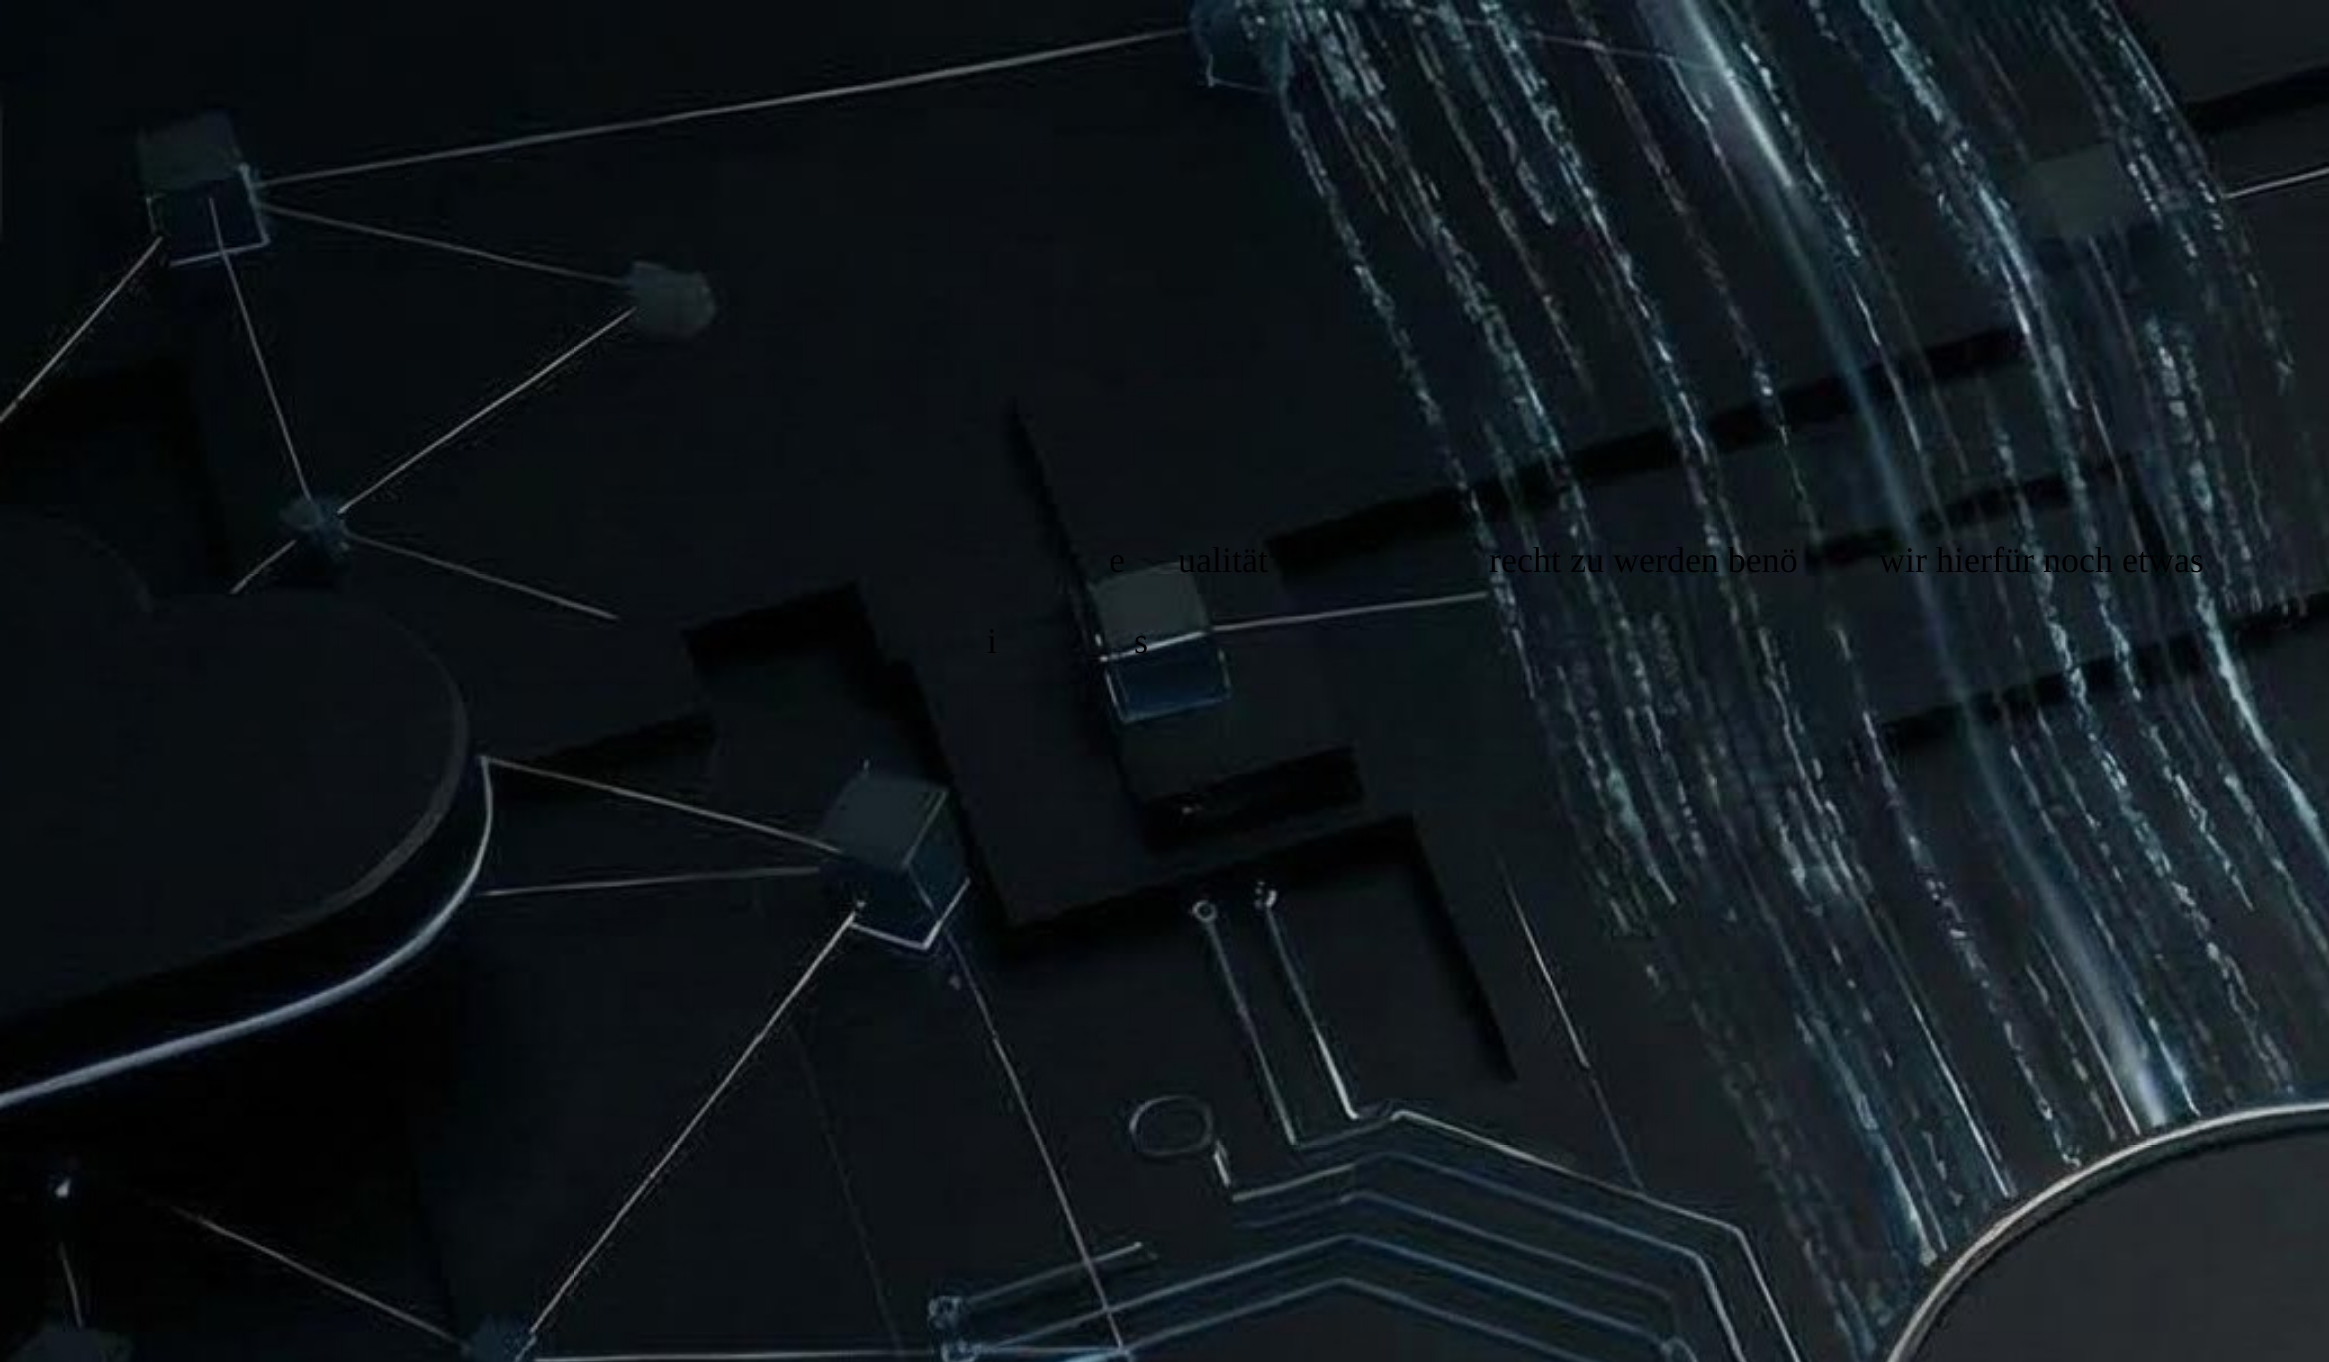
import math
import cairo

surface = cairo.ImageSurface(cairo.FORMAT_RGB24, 2329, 1362)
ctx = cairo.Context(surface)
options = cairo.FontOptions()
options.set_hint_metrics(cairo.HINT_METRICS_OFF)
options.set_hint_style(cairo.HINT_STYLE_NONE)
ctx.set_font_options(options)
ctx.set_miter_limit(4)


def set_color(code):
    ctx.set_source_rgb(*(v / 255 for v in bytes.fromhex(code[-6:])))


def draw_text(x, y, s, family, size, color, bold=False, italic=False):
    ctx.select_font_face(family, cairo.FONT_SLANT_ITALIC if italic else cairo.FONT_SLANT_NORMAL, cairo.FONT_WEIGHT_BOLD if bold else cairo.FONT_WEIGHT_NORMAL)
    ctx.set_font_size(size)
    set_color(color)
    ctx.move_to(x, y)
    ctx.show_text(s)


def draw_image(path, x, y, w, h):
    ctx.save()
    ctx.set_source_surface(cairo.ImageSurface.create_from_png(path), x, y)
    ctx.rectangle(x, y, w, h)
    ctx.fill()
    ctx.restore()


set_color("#ffffff")
ctx.paint()
draw_image("assets/img1.png", 0, 0, 2329, 1362)
draw_text(1109, 572, "e", "Liberation Serif", 36, "#000000")
draw_text(1178, 572, "ualität", "Liberation Serif", 36, "#000000")
draw_text(1489, 572, "recht zu werden benö", "Liberation Serif", 36, "#000000")
draw_text(1879, 572, "wir hierfür noch etwas", "Liberation Serif", 36, "#000000")
draw_text(987, 653, "i", "Liberation Serif", 36, "#000000")
draw_text(1134, 653, "s", "Liberation Serif", 36, "#000000")
surface.write_to_png("output.png")
